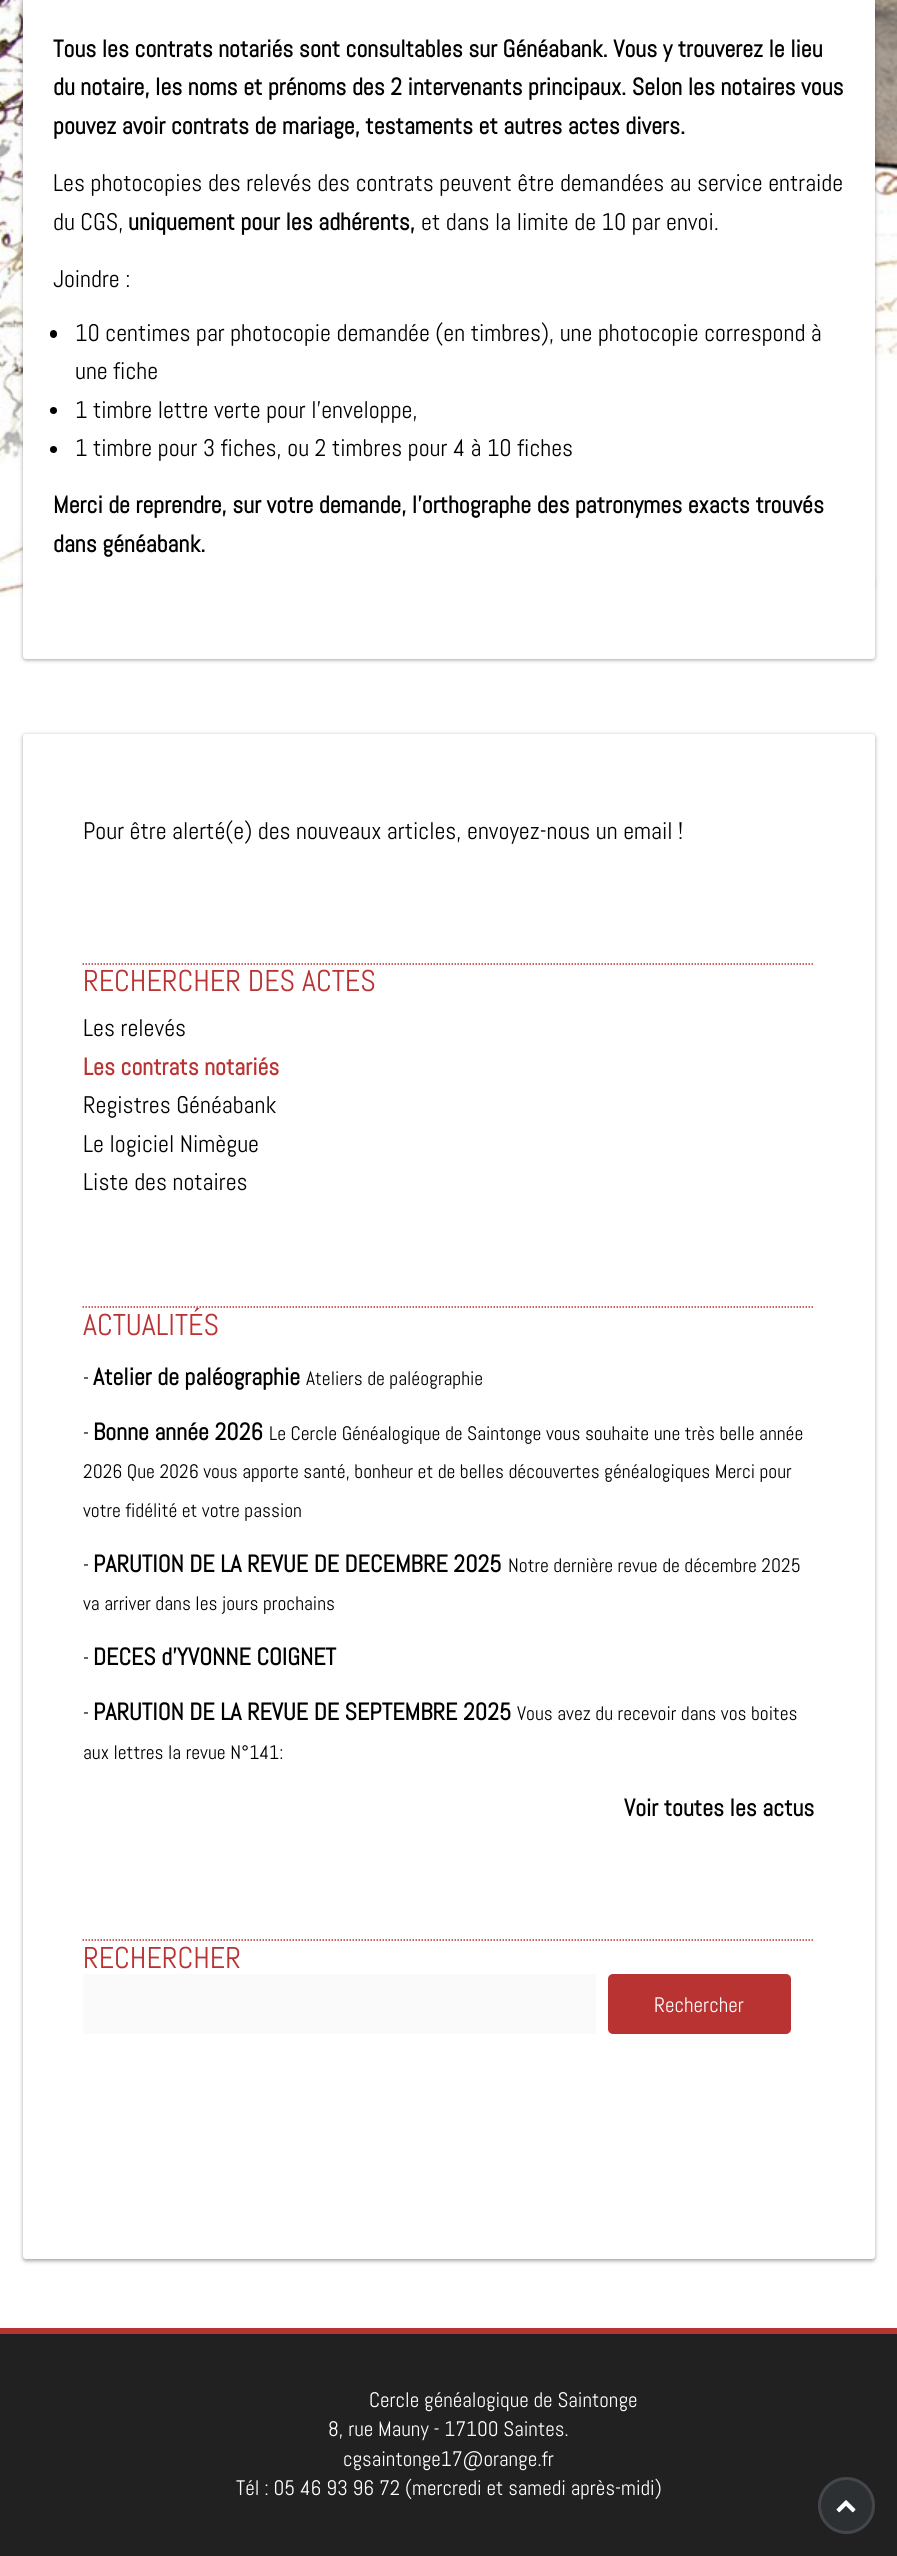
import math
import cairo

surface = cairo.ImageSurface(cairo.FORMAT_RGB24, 897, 2556)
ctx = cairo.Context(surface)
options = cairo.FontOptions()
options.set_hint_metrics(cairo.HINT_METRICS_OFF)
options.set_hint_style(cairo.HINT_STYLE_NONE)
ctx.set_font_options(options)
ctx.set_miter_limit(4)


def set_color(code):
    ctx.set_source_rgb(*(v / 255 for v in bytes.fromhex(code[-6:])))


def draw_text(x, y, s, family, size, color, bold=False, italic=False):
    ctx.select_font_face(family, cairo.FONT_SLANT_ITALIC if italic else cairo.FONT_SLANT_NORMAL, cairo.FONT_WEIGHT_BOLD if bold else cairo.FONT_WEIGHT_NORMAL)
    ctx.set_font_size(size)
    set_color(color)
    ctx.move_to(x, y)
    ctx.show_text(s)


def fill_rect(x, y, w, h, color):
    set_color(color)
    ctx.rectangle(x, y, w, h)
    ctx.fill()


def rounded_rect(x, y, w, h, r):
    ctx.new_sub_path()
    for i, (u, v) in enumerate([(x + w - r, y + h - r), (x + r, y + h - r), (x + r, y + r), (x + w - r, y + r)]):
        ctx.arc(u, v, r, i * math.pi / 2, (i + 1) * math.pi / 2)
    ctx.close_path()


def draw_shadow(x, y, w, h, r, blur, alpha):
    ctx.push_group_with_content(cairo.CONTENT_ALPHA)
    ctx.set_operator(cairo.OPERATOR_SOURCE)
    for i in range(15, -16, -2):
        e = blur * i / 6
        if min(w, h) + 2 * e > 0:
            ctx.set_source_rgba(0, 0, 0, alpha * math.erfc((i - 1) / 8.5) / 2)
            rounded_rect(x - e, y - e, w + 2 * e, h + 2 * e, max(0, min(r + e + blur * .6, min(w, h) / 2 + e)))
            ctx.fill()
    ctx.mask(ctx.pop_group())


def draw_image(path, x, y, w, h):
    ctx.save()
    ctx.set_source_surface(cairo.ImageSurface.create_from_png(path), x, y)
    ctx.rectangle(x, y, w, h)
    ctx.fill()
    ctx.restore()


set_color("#ffffff")
ctx.paint()
draw_image("assets/img1.png", 0, 0, 897, 597)
set_color("#221919")
draw_shadow(23, -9, 852, 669, 3, 2, 0.4)
set_color("#ffffff")
rounded_rect(23, -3, 852, 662, 3)
ctx.fill()
draw_text(53, 57, "Tous les contrats notariés sont consultables sur Généabank. Vous y trouverez le lieu", "Abel", 24, "#000000", bold=True)
draw_text(53, 95, "du notaire, les noms et prénoms des 2 intervenants principaux. Selon les notaires vous", "Abel", 24, "#000000", bold=True)
draw_text(53, 134, "pouvez avoir contrats de mariage, testaments et autres actes divers.", "Abel", 24, "#000000", bold=True)
draw_text(53, 191, "Les photocopies des relevés des contrats peuvent être demandées au service entraide", "Abel", 24, "#000000")
draw_text(53, 230, "du CGS,", "Abel", 24, "#000000")
draw_text(128, 230, "uniquement pour les adhérents,", "Abel", 24, "#000000", bold=True)
draw_text(421, 230, "et dans la limite de 10 par envoi.", "Abel", 24, "#000000")
draw_text(53, 287, "Joindre :", "Abel", 24, "#000000")
rounded_rect(50, 330, 7, 8, 3.5)
ctx.fill()
draw_text(75, 341, "10 centimes par photocopie demandée (en timbres), une photocopie correspond à", "Abel", 24, "#000000")
draw_text(75, 379, "une fiche", "Abel", 24, "#000000")
ctx.new_path()
ctx.arc(53.5, 410.5, 3.5, 0, 2 * math.pi)
ctx.fill()
draw_text(75, 418, "1 timbre lettre verte pour l’enveloppe,", "Abel", 24, "#000000")
ctx.new_path()
ctx.arc(53.5, 449.5, 3.5, 0, 2 * math.pi)
ctx.fill()
draw_text(75, 456, "1 timbre pour 3 fiches, ou 2 timbres pour 4 à 10 fiches", "Abel", 24, "#000000")
draw_text(53, 513, "Merci de reprendre, sur votre demande, l’orthographe des patronymes exacts trouvés", "Abel", 24, "#000000", bold=True)
draw_text(53, 552, "dans généabank.", "Abel", 24, "#000000", bold=True)
set_color("#221919")
draw_shadow(23, 735, 852, 1526, 3, 2, 0.4)
set_color("#ffffff")
rounded_rect(23, 734, 852, 1525, 3)
ctx.fill()
draw_text(83, 839, "Pour être alerté(e) des nouveaux articles, envoyez-nous un email !", "Abel", 24, "#000000")
ctx.new_path()
ctx.move_to(82.5, 964)
ctx.line_to(814.5, 964)
set_color("#b93333")
ctx.set_line_width(1.5)
ctx.set_dash([1.5, 1.5])
ctx.stroke()
draw_text(83, 991, "RECHERCHER DES ACTES", "Abel", 30, "#b93333")
draw_text(83, 1036, "Les relevés", "Abel", 24, "#000000")
draw_text(83, 1075, "Les contrats notariés", "Abel", 24, "#b93333", bold=True)
draw_text(83, 1113, "Registres Généabank", "Abel", 24, "#000000")
draw_text(83, 1152, "Le logiciel Nimègue", "Abel", 24, "#000000")
draw_text(83, 1190, "Liste des notaires", "Abel", 24, "#000000")
ctx.new_path()
ctx.move_to(82.5, 1307)
ctx.line_to(814.5, 1307)
set_color("#b93333")
ctx.stroke()
draw_text(83, 1335, "ACTUALITÉS", "Abel", 30, "#b93333")
draw_text(83, 1385, "-", "Abel", 21, "#000000")
draw_text(93, 1385, "Atelier de paléographie", "Abel", 24, "#000000", bold=True)
draw_text(306, 1385, "Ateliers de paléographie", "Abel", 19.5, "#000000")
draw_text(83, 1440, "-", "Abel", 21, "#000000")
draw_text(93, 1440, "Bonne année 2026", "Abel", 24, "#000000", bold=True)
draw_text(269, 1440, "Le Cercle Généalogique de Saintonge vous souhaite une très belle année", "Abel", 19.5, "#000000")
draw_text(83, 1478, "2026 Que 2026 vous apporte santé, bonheur et de belles découvertes généalogiques Merci pour", "Abel", 19.5, "#000000")
draw_text(83, 1517, "votre fidélité et votre passion", "Abel", 19.5, "#000000")
draw_text(83, 1572, "-", "Abel", 21, "#000000")
draw_text(93, 1572, "PARUTION DE LA REVUE DE DECEMBRE 2025", "Abel", 24, "#000000", bold=True)
draw_text(508, 1572, "Notre dernière revue de décembre 2025", "Abel", 19.5, "#000000")
draw_text(83, 1610, "va arriver dans les jours prochains", "Abel", 19.5, "#000000")
draw_text(83, 1665, "-", "Abel", 21, "#000000")
draw_text(93, 1665, "DECES d’YVONNE COIGNET", "Abel", 24, "#000000", bold=True)
draw_text(83, 1720, "-", "Abel", 21, "#000000")
draw_text(93, 1720, "PARUTION DE LA REVUE DE SEPTEMBRE 2025", "Abel", 24, "#000000", bold=True)
draw_text(517, 1720, "Vous avez du recevoir dans vos boites", "Abel", 19.5, "#000000")
draw_text(83, 1759, "aux lettres la revue N°141:", "Abel", 19.5, "#000000")
draw_text(624, 1816, "Voir toutes les actus", "Abel", 24, "#000000", bold=True)
ctx.new_path()
ctx.move_to(82.5, 1940)
ctx.line_to(814.5, 1940)
set_color("#b93333")
ctx.stroke()
draw_text(83, 1968, "RECHERCHER", "Abel", 30, "#b93333")
fill_rect(83, 1974, 513, 60, "#fafafa")
set_color("#b93333")
rounded_rect(608, 1974, 183, 60, 5)
ctx.fill()
draw_text(654, 2012, "Rechercher", "Abel", 21, "#ffffff")
fill_rect(0, 2334, 897, 222, "#212121")
fill_rect(0, 2328, 897, 6, "#b93333")
draw_text(369, 2407, "Cercle généalogique de Saintonge", "Abel", 21, "#ffffff")
draw_text(328, 2436, "8, rue Mauny - 17100 Saintes.", "Abel", 21, "#ffffff")
draw_text(343, 2466, "cgsaintonge17@orange.fr", "Abel", 21, "#ffffff")
draw_text(236, 2495, "Tél : 05 46 93 96 72 (mercredi et samedi après-midi)", "Abel", 21, "#ffffff")
set_color("#2d3032")
ctx.new_path()
ctx.arc(846.5, 2505.5, 27, 0, 2 * math.pi)
ctx.fill_preserve()
set_color("#444649")
ctx.set_line_width(3)
ctx.set_dash([])
ctx.stroke()
draw_image("assets/img2.png", 836, 2500, 20, 13)
surface.write_to_png("output.png")
